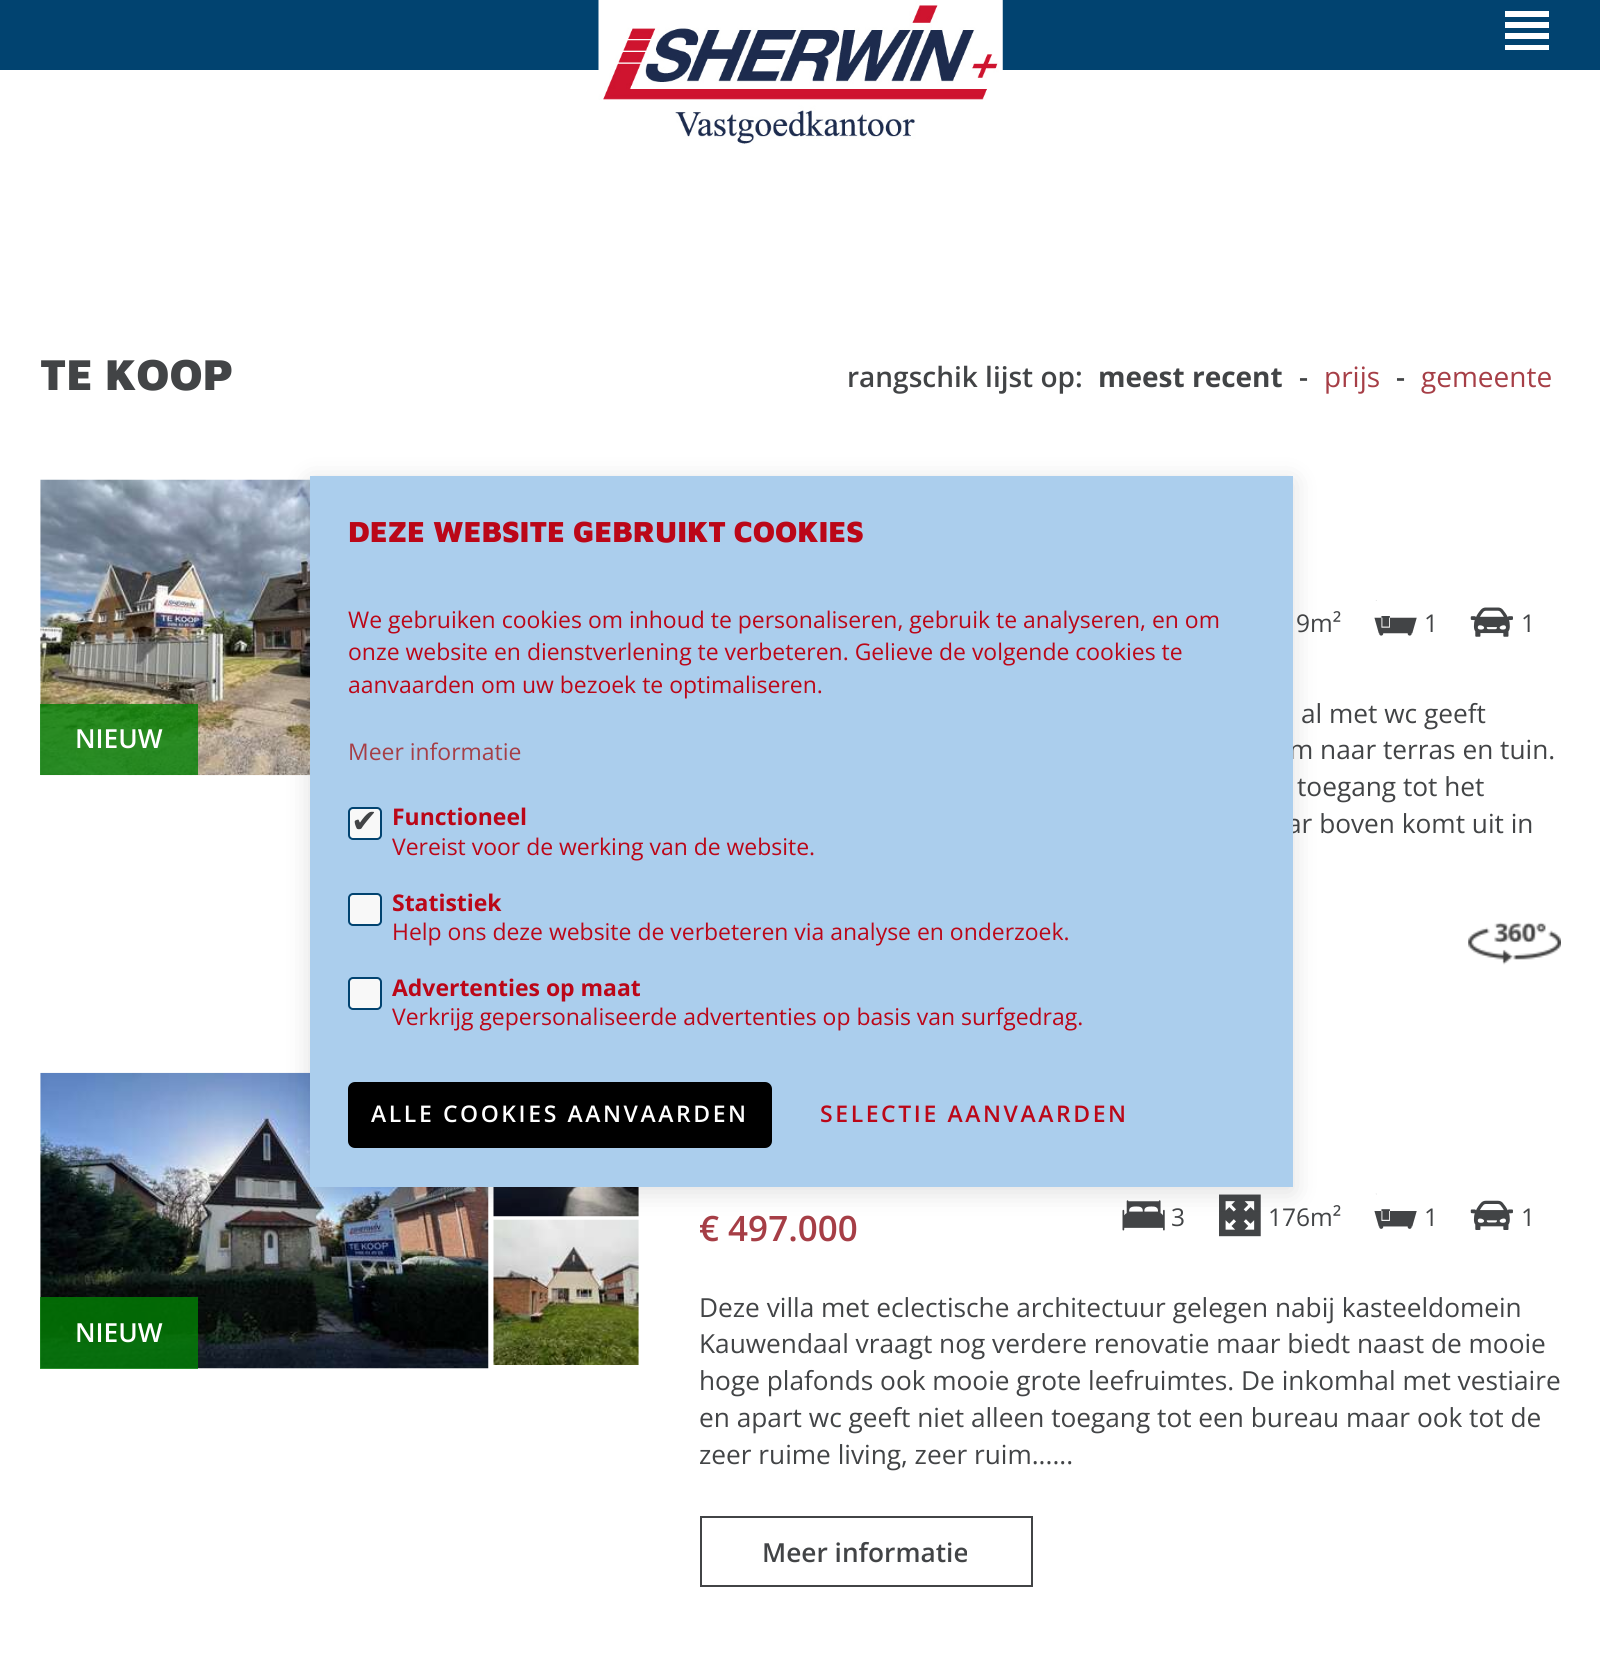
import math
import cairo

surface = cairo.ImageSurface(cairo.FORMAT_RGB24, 1600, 1660)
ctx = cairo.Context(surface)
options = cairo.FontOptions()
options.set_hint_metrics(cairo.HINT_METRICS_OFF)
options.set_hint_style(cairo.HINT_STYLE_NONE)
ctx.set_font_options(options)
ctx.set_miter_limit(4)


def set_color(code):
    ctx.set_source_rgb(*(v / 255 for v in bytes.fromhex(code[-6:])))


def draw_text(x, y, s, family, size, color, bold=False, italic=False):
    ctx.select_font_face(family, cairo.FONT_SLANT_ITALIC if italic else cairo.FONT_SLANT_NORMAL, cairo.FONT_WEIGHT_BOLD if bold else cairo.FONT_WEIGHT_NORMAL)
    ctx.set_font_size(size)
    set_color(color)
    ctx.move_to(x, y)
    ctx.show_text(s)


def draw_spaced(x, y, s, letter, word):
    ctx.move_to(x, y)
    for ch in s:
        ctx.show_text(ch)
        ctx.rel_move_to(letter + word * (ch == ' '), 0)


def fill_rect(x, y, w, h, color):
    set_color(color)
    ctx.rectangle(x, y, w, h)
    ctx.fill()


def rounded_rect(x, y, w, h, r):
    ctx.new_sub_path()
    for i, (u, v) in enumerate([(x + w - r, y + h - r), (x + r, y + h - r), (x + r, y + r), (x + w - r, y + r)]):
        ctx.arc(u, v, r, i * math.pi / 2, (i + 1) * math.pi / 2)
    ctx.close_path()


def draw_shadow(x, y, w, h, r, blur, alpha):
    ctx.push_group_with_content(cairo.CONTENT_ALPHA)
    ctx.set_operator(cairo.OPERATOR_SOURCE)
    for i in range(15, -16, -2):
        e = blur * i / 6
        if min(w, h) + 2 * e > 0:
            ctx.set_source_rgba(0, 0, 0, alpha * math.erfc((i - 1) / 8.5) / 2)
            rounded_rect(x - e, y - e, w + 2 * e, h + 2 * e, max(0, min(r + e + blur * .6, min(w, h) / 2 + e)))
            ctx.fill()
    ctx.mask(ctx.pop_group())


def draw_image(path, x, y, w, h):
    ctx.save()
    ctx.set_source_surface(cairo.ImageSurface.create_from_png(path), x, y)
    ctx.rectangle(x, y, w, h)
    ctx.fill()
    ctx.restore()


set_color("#ffffff")
ctx.paint()
fill_rect(0, 0, 1600, 70, "#014370")
draw_image("assets/img1.png", 598, 0, 405, 144)
set_color("#ffffff")
ctx.new_path()
ctx.move_to(1505, 39)
ctx.line_to(1505, 33)
ctx.line_to(1549, 33)
ctx.line_to(1549, 39)
ctx.close_path()
ctx.move_to(1505, 50)
ctx.line_to(1505, 45)
ctx.line_to(1549, 45)
ctx.line_to(1549, 50)
ctx.close_path()
ctx.move_to(1505, 28)
ctx.line_to(1505, 22)
ctx.line_to(1549, 22)
ctx.line_to(1549, 28)
ctx.close_path()
ctx.move_to(1505, 11)
ctx.line_to(1549, 11)
ctx.line_to(1549, 17)
ctx.line_to(1505, 17)
ctx.close_path()
ctx.fill()
draw_text(40, 390, "TE KOOP", "Maven Pro Black", 44.5, "#424446")
draw_text(847, 387, "rangschik lijst op:", "Open Sans SemiBold", 28, "#424446")
draw_text(1098, 387, "meest recent", "Open Sans", 28, "#424446", bold=True)
draw_text(1299, 387, "-", "Open Sans SemiBold", 28, "#424446")
draw_text(1324, 387, "prijs", "Open Sans", 28, "#a63e46")
draw_text(1396, 387, "-", "Open Sans SemiBold", 28, "#424446")
draw_text(1421, 387, "gemeente", "Open Sans", 28, "#a63e46")
draw_image("assets/img2.png", 40, 479, 270, 297)
ctx.set_source_rgba(0.008, 0.502, 0.016, 0.8)
ctx.rectangle(40, 704, 158, 71)
ctx.fill()
draw_text(75, 748, "NIEUW", "Open Sans SemiBold", 26.25, "#ffffff")
draw_text(1296, 632, "9m²", "Open Sans", 24.5, "#424446")
draw_image("assets/img3.png", 1374, 600, 43, 36)
draw_text(1424, 632, "1", "Open Sans", 24.5, "#424446")
draw_image("assets/img4.png", 1470, 607, 43, 30)
draw_text(1521, 632, "1", "Open Sans", 24.5, "#424446")
draw_text(1301, 723, "al met wc geeft", "Open Sans", 26.25, "#424446")
draw_text(1289, 759, "m naar terras en tuin.", "Open Sans", 26.25, "#424446")
draw_text(1297, 796, "toegang tot het", "Open Sans", 26.25, "#424446")
draw_text(1287, 833, "ar boven komt uit in", "Open Sans", 26.25, "#424446")
draw_image("assets/img5.png", 1468, 922, 93, 43)
draw_image("assets/img6.png", 40, 1072, 449, 297)
draw_image("assets/img7.png", 493, 1187, 146, 30)
ctx.set_source_rgba(0.008, 0.502, 0.016, 0.8)
ctx.rectangle(40, 1297, 158, 72)
ctx.fill()
draw_text(75, 1342, "NIEUW", "Open Sans SemiBold", 26.25, "#ffffff")
draw_image("assets/img8.png", 493, 1219, 146, 146)
draw_text(699, 1241, "€ 497.000", "Open Sans SemiBold", 35, "#a63e46")
draw_image("assets/img9.png", 1122, 1200, 43, 31)
draw_text(1171, 1226, "3", "Open Sans", 24.5, "#424446")
draw_image("assets/img10.png", 1219, 1194, 42, 43)
draw_text(1268, 1226, "176m²", "Open Sans", 24.5, "#424446")
draw_image("assets/img11.png", 1374, 1193, 43, 36)
draw_text(1424, 1226, "1", "Open Sans", 24.5, "#424446")
draw_image("assets/img12.png", 1470, 1200, 43, 30)
draw_text(1521, 1226, "1", "Open Sans", 24.5, "#424446")
draw_text(699, 1317, "Deze villa met eclectische architectuur gelegen nabij kasteeldomein", "Open Sans", 26.25, "#424446")
draw_text(699, 1353, "Kauwendaal vraagt nog verdere renovatie maar biedt naast de mooie", "Open Sans", 26.25, "#424446")
draw_text(699, 1390, "hoge plafonds ook mooie grote leefruimtes. De inkomhal met vestiaire", "Open Sans", 26.25, "#424446")
draw_text(699, 1427, "en apart wc geeft niet alleen toegang tot een bureau maar ook tot de", "Open Sans", 26.25, "#424446")
draw_text(699, 1464, "zeer ruime living, zeer ruim......", "Open Sans", 26.25, "#424446")
ctx.rectangle(701, 1517, 331, 69)
ctx.stroke()
draw_text(762, 1562, "Meer informatie", "Open Sans SemiBold", 26.25, "#424446")
set_color("#333333")
draw_shadow(310, 481, 983, 711, 0, 13, 0.16)
fill_rect(310, 476, 983, 711, "#abceed")
draw_text(348, 542, "DEZE WEBSITE GEBRUIKT COOKIES", "Maven Pro Black", 29.9, "#bb0718")
draw_text(348, 628, "We gebruiken cookies om inhoud te personaliseren, gebruik te analyseren, en om", "Open Sans", 22.95, "#bb0718")
draw_text(348, 660, "onze website en dienstverlening te verbeteren. Gelieve de volgende cookies te", "Open Sans", 22.95, "#bb0718")
draw_text(348, 693, "aanvaarden om uw bezoek te optimaliseren.", "Open Sans", 22.95, "#bb0718")
draw_text(348, 760, "Meer informatie", "Open Sans", 22.95, "#a63e46")
set_color("#f8f8f8")
rounded_rect(349, 808, 32, 31, 4)
ctx.fill_preserve()
set_color("#014370")
ctx.stroke()
draw_text(392, 825, "Functioneel", "Open Sans", 22.95, "#bb0718", bold=True)
draw_text(351, 832, "✔", "DejaVu Sans", 32, "#424446")
draw_text(392, 855, "Vereist voor de werking van de website.", "Open Sans", 22.95, "#bb0718")
set_color("#f8f8f8")
rounded_rect(349, 894, 32, 31, 4)
ctx.fill_preserve()
set_color("#014370")
ctx.stroke()
draw_text(392, 911, "Statistiek", "Open Sans", 22.95, "#bb0718", bold=True)
draw_text(392, 940, "Help ons deze website de verbeteren via analyse en onderzoek.", "Open Sans", 22.95, "#bb0718")
set_color("#f8f8f8")
rounded_rect(349, 978, 32, 31, 4)
ctx.fill_preserve()
set_color("#014370")
ctx.stroke()
draw_text(392, 996, "Advertenties op maat", "Open Sans", 22.95, "#bb0718", bold=True)
draw_text(392, 1025, "Verkrijg gepersonaliseerde advertenties op basis van surfgedrag.", "Open Sans", 22.95, "#bb0718")
set_color("#000000")
rounded_rect(349, 1083, 422, 64, 6)
ctx.fill_preserve()
ctx.stroke()
ctx.select_font_face("Open Sans SemiBold")
set_color("#ffffff")
draw_spaced(371, 1122, "ALLE COOKIES AANVAARDEN", 2.6, 0)
set_color("#bb0718")
draw_spaced(820, 1122, "SELECTIE AANVAARDEN", 2.6, 0)
surface.write_to_png("output.png")
